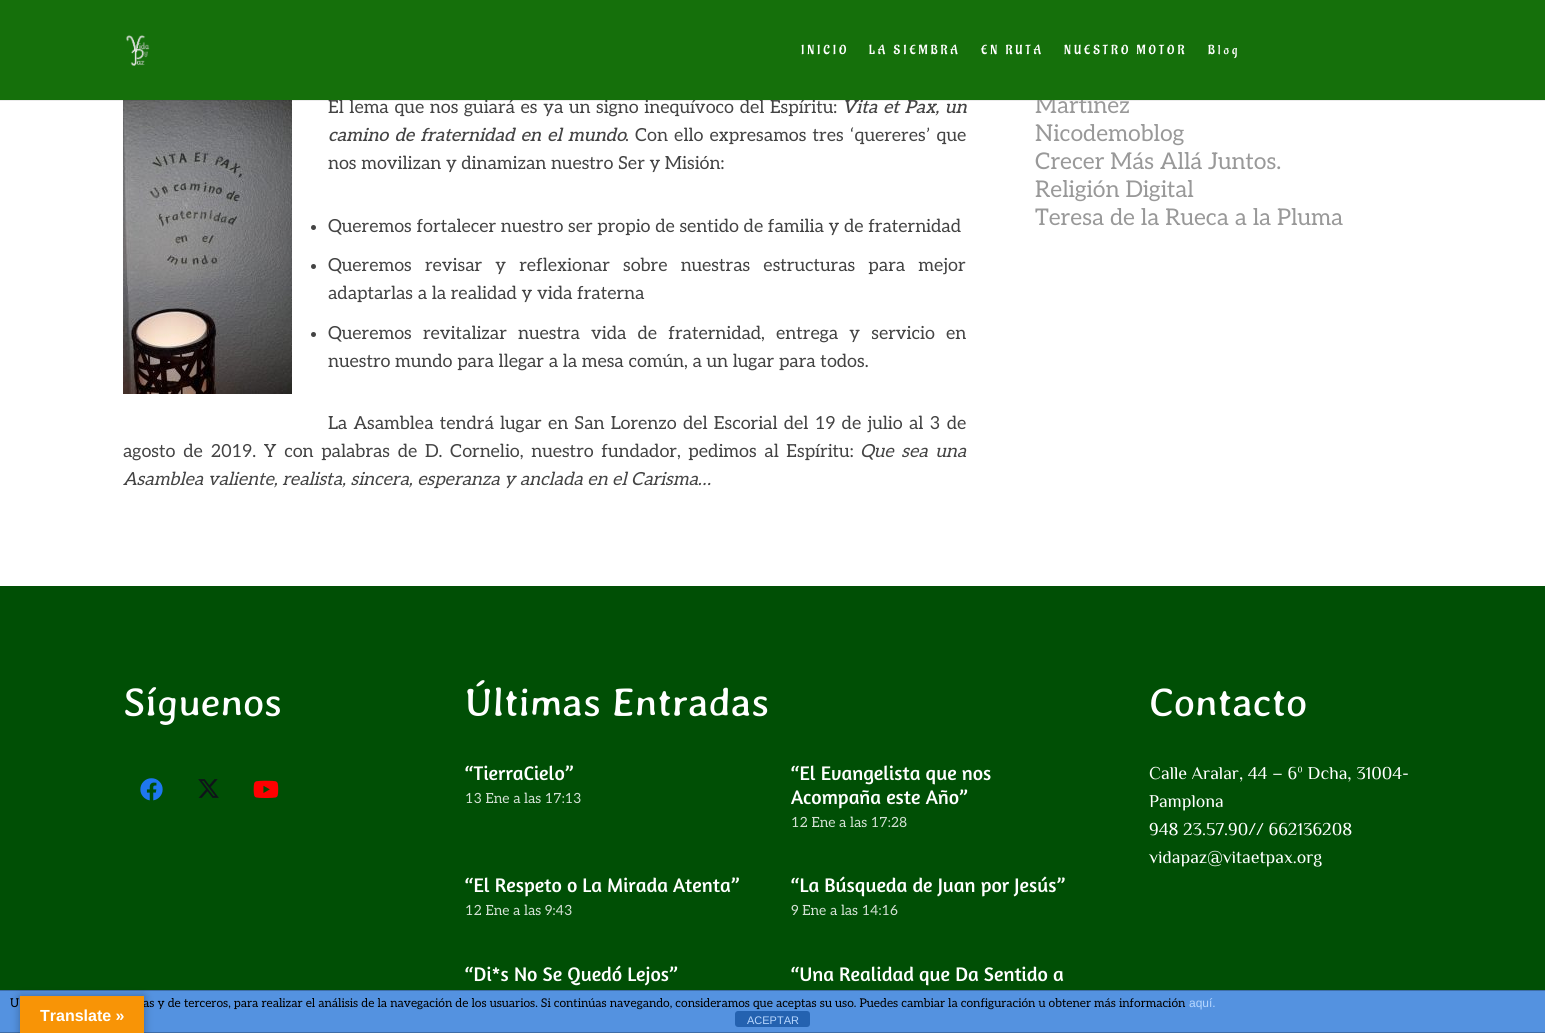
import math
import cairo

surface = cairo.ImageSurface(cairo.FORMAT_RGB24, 1545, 1033)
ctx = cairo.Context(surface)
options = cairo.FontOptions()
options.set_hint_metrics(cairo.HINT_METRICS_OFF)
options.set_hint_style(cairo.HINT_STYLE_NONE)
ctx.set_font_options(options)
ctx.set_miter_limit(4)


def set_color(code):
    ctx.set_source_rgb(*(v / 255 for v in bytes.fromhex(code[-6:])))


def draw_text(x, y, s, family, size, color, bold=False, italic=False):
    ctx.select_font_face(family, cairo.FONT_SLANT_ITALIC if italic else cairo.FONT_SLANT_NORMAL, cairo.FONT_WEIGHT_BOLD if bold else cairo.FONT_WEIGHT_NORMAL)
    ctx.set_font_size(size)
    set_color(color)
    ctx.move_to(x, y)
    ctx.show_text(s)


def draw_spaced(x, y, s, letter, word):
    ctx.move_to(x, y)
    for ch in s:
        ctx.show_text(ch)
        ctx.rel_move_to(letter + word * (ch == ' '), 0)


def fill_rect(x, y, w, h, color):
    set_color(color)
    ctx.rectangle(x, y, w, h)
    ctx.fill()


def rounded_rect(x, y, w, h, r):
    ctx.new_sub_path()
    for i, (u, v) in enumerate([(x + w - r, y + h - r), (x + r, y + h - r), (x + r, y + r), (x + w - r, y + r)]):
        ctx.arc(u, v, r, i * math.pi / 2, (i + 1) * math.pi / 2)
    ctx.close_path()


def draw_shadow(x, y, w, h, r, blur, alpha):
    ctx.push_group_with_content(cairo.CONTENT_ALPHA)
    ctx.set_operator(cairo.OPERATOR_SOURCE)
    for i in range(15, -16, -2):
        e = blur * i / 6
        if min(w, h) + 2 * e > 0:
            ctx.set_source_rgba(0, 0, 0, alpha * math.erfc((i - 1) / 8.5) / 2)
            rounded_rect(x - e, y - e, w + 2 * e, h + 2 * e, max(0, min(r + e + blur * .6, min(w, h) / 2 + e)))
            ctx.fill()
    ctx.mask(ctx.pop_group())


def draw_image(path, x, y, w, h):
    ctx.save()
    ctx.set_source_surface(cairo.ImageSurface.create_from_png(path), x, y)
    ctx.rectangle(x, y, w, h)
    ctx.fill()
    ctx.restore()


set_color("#ffffff")
ctx.paint()
draw_image("assets/img2.png", 123, 100, 169, 294)
ctx.set_source_rgba(0, 0, 0, 0.08)
ctx.rectangle(0, 100, 1545, 1)
ctx.fill()
ctx.select_font_face("Aleo")
ctx.set_font_size(18)
set_color("#444444")
draw_spaced(328, 113, "El lema que nos guiará es ya un signo inequívoco del Espíritu:", 0, 1)
ctx.select_font_face("Aleo Medium", cairo.FONT_SLANT_ITALIC)
draw_spaced(842, 113, "Vita et Pax, un", 0, 1)
draw_text(1035, 113, "Martinez", "Aleo", 23, "#999999")
fill_rect(0, 0, 1545, 100, "#15700b")
draw_image("assets/img1.png", 126, 35, 24, 31)
ctx.select_font_face("Aladin")
ctx.set_font_size(13)
set_color("#ffffff")
draw_spaced(801, 54, "INICIO", 3, 0)
draw_spaced(869, 54, "LA SIEMBRA", 3, 0)
draw_spaced(981, 54, "EN RUTA", 3, 0)
draw_spaced(1064, 54, "NUESTRO MOTOR", 3, 0)
draw_spaced(1208, 54, "Blog", 3, 0)
ctx.select_font_face("Aleo Medium", cairo.FONT_SLANT_ITALIC)
ctx.set_font_size(18)
set_color("#444444")
draw_spaced(328, 141, "camino de fraternidad en el mundo", 0, 1.5)
ctx.select_font_face("Aleo")
draw_spaced(625, 141, ". Con ello expresamos tres ‘quereres’ que", 0, 1.5)
draw_text(328, 169, "nos movilizan y dinamizan nuestro Ser y Misión:", "Aleo", 18, "#444444")
ctx.new_path()
ctx.arc(313.5, 227.5, 2.5, 0, 2 * math.pi)
ctx.fill()
draw_text(328, 232, "Queremos fortalecer nuestro ser propio de sentido de familia y de fraternidad", "Aleo", 18, "#444444")
ctx.new_path()
ctx.arc(313.5, 266.5, 2.5, 0, 2 * math.pi)
ctx.fill()
draw_spaced(328, 271, "Queremos revisar y reflexionar sobre nuestras estructuras para mejor", 0, 8.5)
draw_text(328, 299, "adaptarlas a la realidad y vida fraterna", "Aleo", 18, "#444444")
ctx.new_path()
ctx.arc(313.5, 334.5, 2.5, 0, 2 * math.pi)
ctx.fill()
draw_spaced(328, 339, "Queremos revitalizar nuestra vida de fraternidad, entrega y servicio en", 0, 6.5)
draw_text(328, 367, "nuestro mundo para llegar a la mesa común, a un lugar para todos.", "Aleo", 18, "#444444")
draw_spaced(328, 429, "La Asamblea tendrá lugar en San Lorenzo del Escorial del 19 de julio al 3 de", 0, 1.6)
draw_spaced(123, 457, "agosto de 2019. Y con palabras de D. Cornelio, nuestro fundador, pedimos al Espíritu:", 0, 3)
ctx.select_font_face("Aleo", cairo.FONT_SLANT_ITALIC)
draw_spaced(860, 457, "Que sea una", 0, 3)
draw_text(123, 485, "Asamblea valiente, realista, sincera, esperanza y anclada en el Carisma…", "Aleo", 18, "#444444", italic=True)
draw_text(1035, 141, "Nicodemoblog", "Aleo", 23, "#999999")
draw_text(1035, 169, "Crecer Más Allá Juntos.", "Aleo", 23, "#999999")
draw_text(1035, 197, "Religión Digital", "Aleo", 23, "#999999")
draw_text(1035, 225, "Teresa de la Rueca a la Pluma", "Aleo", 23, "#999999")
fill_rect(0, 586, 1545, 404, "#004f05")
draw_text(123, 716, "Síguenos", "Averia Gruesa Libre", 40, "#ffffff")
draw_image("assets/img3.png", 140, 778, 23, 23)
draw_image("assets/img4.png", 198, 779, 21, 19)
draw_image("assets/img5.png", 253, 780, 26, 18)
draw_text(465, 716, "Últimas Entradas", "Averia Gruesa Libre", 40, "#ffffff")
draw_text(465, 780, "“TierraCielo”", "Amaranth", 20, "#ffffff")
draw_text(465, 803, "13 Ene a las 17:13", "Aleo", 14, "#d4e1d5")
draw_text(791, 780, "“El Evangelista que nos", "Amaranth", 20, "#ffffff")
draw_text(791, 804, "Acompaña este Año”", "Amaranth", 20, "#ffffff")
draw_text(791, 827, "12 Ene a las 17:28", "Aleo", 14, "#d4e1d5")
draw_text(465, 892, "“El Respeto o La Mirada Atenta”", "Amaranth", 20, "#ffffff")
draw_text(465, 915, "12 Ene a las 9:43", "Aleo", 14, "#d4e1d5")
draw_text(791, 892, "“La Búsqueda de Juan por Jesús”", "Amaranth", 20, "#ffffff")
draw_text(791, 915, "9 Ene a las 14:16", "Aleo", 14, "#d4e1d5")
draw_text(465, 981, "“Di*s No Se Quedó Lejos”", "Amaranth", 20, "#ffffff")
draw_text(791, 981, "“Una Realidad que Da Sentido a", "Amaranth", 20, "#ffffff")
draw_text(1149, 716, "Contacto", "Averia Gruesa Libre", 40, "#ffffff")
draw_text(1149, 779, "Calle Aralar, 44 – 6º Dcha, 31004-", "El Messiri", 18, "#ffffff")
draw_text(1149, 807, "Pamplona", "El Messiri", 18, "#ffffff")
draw_text(1149, 835, "948 23.57.90// 662136208", "El Messiri", 18, "#ffffff")
draw_text(1149, 863, "vidapaz@vitaetpax.org", "El Messiri", 18, "#ffffff")
fill_rect(0, 991, 1545, 41, "#5492e0")
fill_rect(0, 990, 1545, 1, "#3f6da7")
fill_rect(0, 1032, 1545, 1, "#3f6da7")
draw_text(10, 1007, "U", "Aleo", 12, "#000000")
draw_text(143, 1007, "as y de terceros, para realizar el análisis de la navegación de los usuarios. Si continúas navegando, consideramos que aceptas su uso. Puedes cambiar la configuración u obtener más información", "Aleo", 12, "#000000")
draw_text(1189, 1007, "aquí.", "Liberation Sans", 12, "#b7d7ff")
set_color("#2462b0")
rounded_rect(735, 1011, 75, 16, 3)
ctx.fill()
draw_text(747, 1024, "ACEPTAR", "Liberation Sans", 11, "#b7d7ff")
set_color("#000000")
draw_shadow(20, 996, 124, 37, 0, 4.5, 0.3)
fill_rect(20, 996, 124, 37, "#f89406")
draw_text(40, 1021, "Translate »", "Liberation Sans", 16, "#ffffff", bold=True)
surface.write_to_png("output.png")
